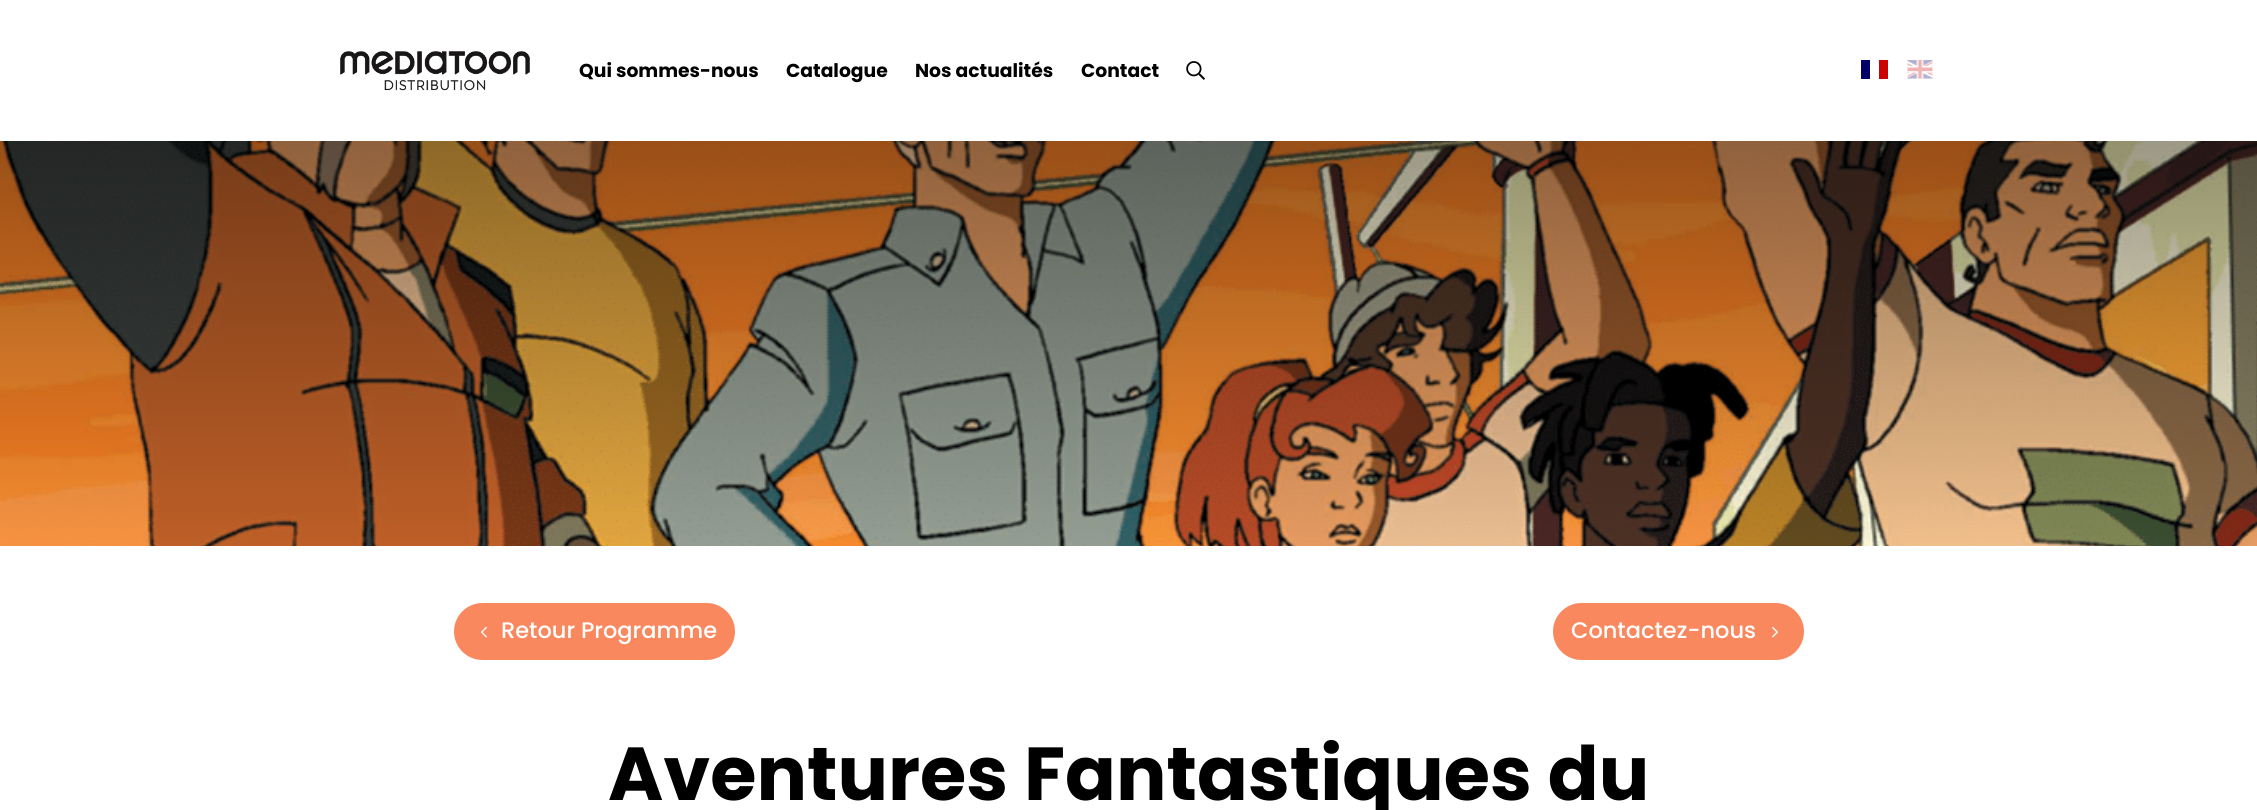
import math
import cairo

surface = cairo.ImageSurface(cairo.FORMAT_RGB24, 2257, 810)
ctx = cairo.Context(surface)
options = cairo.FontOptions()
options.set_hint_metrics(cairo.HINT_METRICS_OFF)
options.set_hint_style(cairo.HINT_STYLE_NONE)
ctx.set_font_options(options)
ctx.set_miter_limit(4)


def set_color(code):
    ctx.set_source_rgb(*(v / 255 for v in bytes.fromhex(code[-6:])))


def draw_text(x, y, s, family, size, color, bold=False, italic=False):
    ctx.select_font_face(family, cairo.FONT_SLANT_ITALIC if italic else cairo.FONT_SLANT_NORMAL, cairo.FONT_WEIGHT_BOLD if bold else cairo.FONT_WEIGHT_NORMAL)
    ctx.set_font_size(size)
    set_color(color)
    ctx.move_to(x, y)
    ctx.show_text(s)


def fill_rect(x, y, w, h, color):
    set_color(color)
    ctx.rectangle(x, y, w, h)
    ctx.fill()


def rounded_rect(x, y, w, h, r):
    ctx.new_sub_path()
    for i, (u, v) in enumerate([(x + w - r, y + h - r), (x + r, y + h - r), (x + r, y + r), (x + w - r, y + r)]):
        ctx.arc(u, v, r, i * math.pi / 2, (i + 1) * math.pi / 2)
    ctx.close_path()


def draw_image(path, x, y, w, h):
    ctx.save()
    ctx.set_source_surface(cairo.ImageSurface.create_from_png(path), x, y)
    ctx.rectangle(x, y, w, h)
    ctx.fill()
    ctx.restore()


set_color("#ffffff")
ctx.paint()
draw_image("assets/img1.png", 340, 51, 190, 40)
draw_text(579, 77, "Qui sommes-nous", "Poppins", 18.75, "#000000", bold=True)
draw_text(786, 77, "Catalogue", "Poppins", 18.75, "#000000", bold=True)
draw_text(915, 77, "Nos actualités", "Poppins", 18.75, "#000000", bold=True)
draw_text(1081, 77, "Contact", "Poppins", 18.75, "#000000", bold=True)
draw_image("assets/img2.png", 1186, 61, 19, 19)
fill_rect(1861, 60, 9, 19, "#010066")
fill_rect(1879, 60, 9, 19, "#cc0200")
draw_image("assets/img3.png", 1907, 60, 26, 19)
draw_image("assets/img4.png", 0, 141, 2257, 405)
set_color("#fa885f")
rounded_rect(455.5, 604.5, 278, 54, 27)
ctx.fill_preserve()
ctx.set_line_width(3)
ctx.stroke()
draw_image("assets/img5.png", 481, 626, 6, 12)
draw_text(501, 638, "Retour Programme", "Poppins Medium", 22.5, "#ffffff")
set_color("#fa885f")
rounded_rect(1554.5, 604.5, 248, 54, 27)
ctx.fill_preserve()
ctx.stroke()
draw_text(1571, 638, "Contactez-nous", "Poppins Medium", 22.5, "#ffffff")
draw_image("assets/img6.png", 1772, 626, 6, 12)
draw_text(608, 800, "Aventures Fantastiques du", "Poppins", 75, "#000000", bold=True)
surface.write_to_png("output.png")
